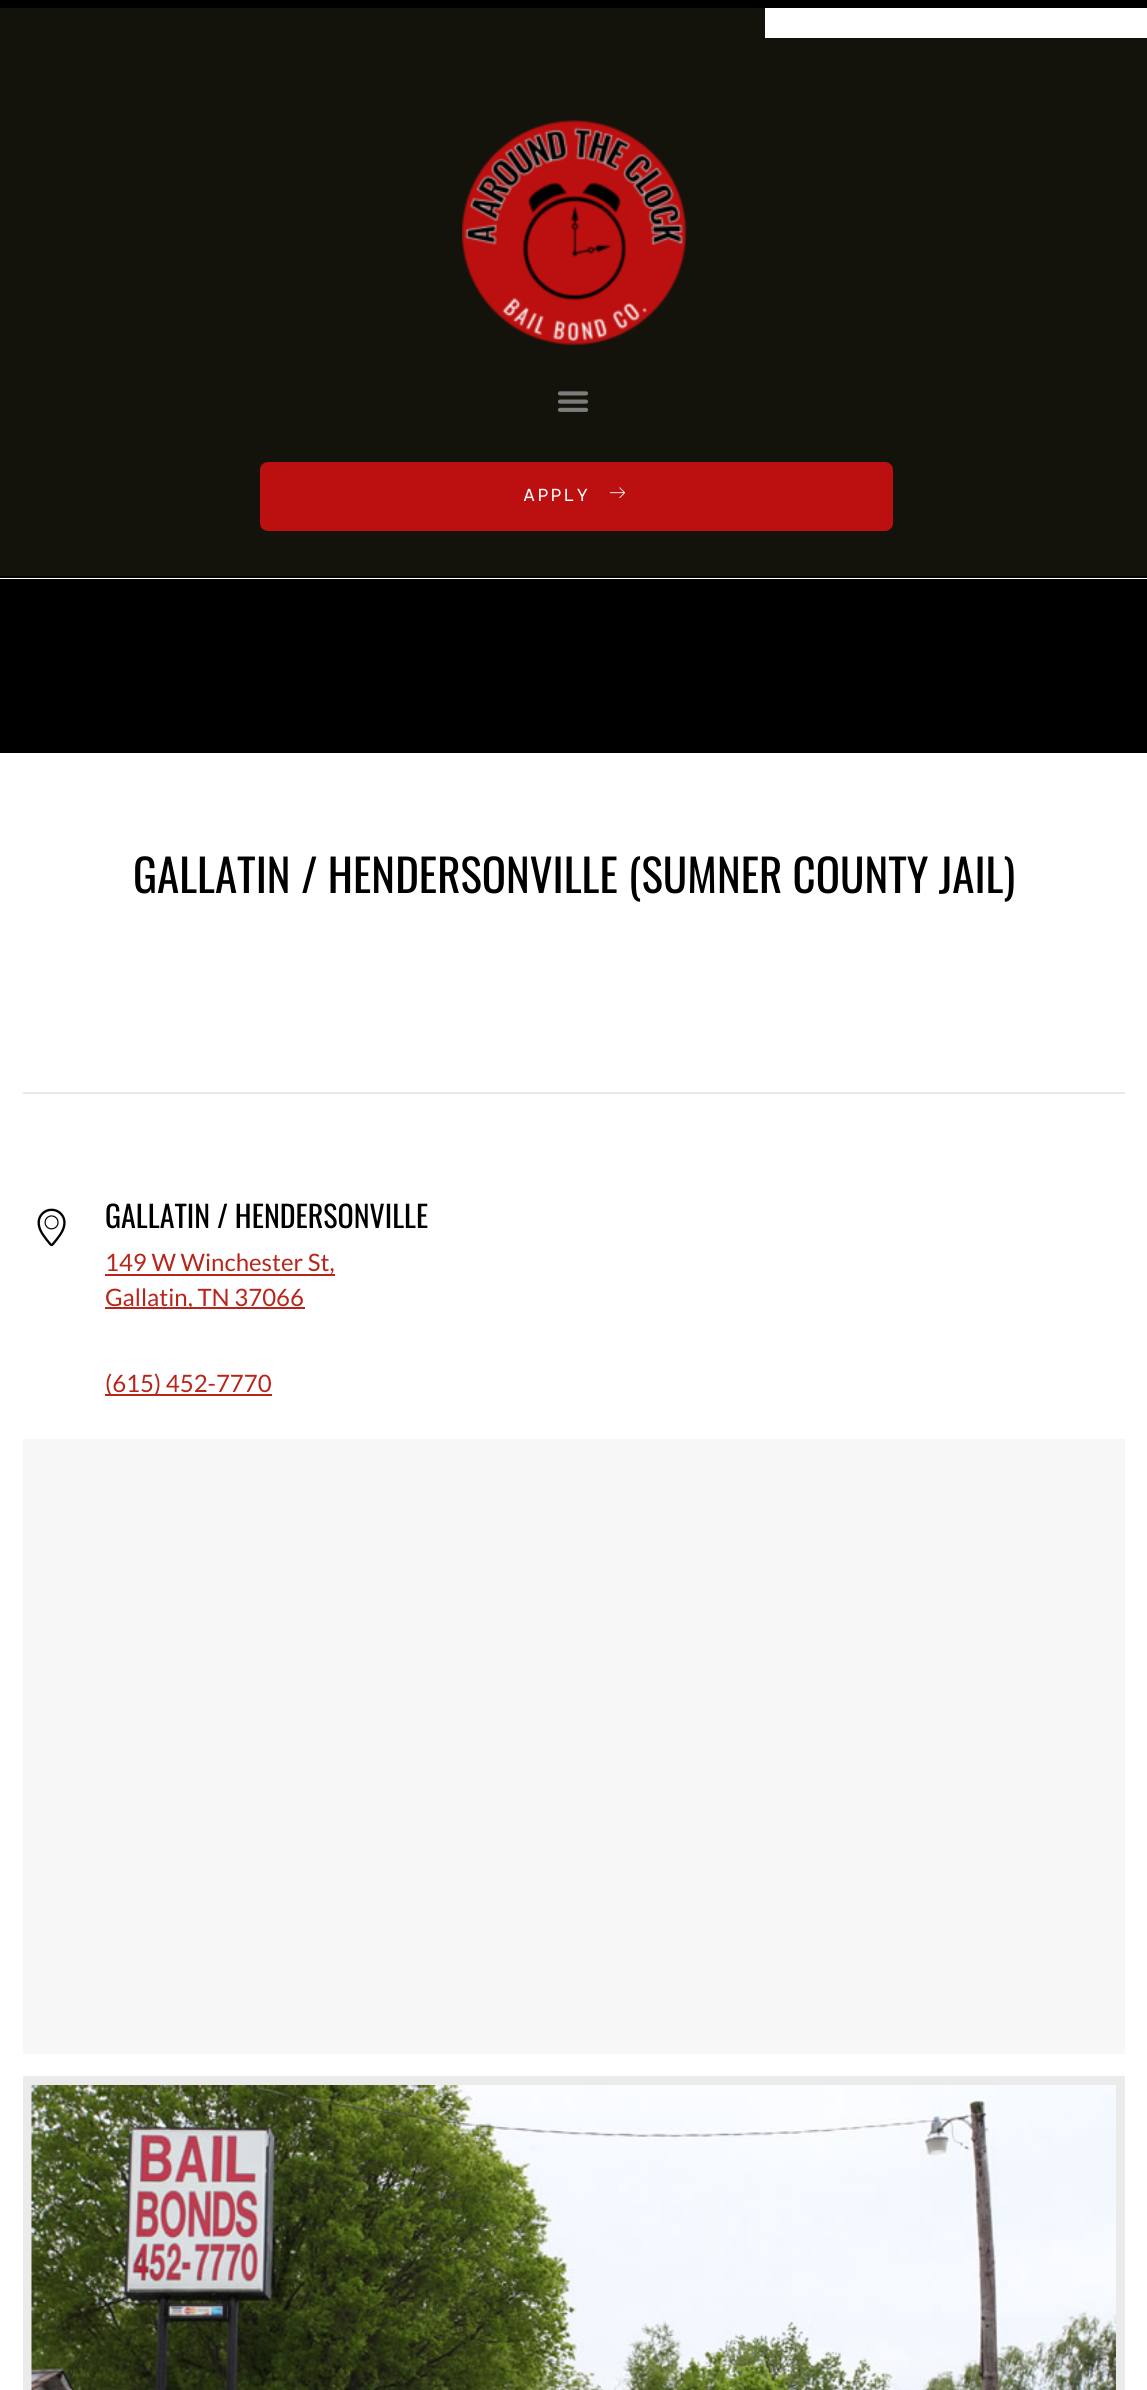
import math
import cairo

surface = cairo.ImageSurface(cairo.FORMAT_RGB24, 1147, 2390)
ctx = cairo.Context(surface)
options = cairo.FontOptions()
options.set_hint_metrics(cairo.HINT_METRICS_OFF)
options.set_hint_style(cairo.HINT_STYLE_NONE)
ctx.set_font_options(options)
ctx.set_miter_limit(4)


def set_color(code):
    ctx.set_source_rgb(*(v / 255 for v in bytes.fromhex(code[-6:])))


def draw_text(x, y, s, family, size, color, bold=False, italic=False):
    ctx.select_font_face(family, cairo.FONT_SLANT_ITALIC if italic else cairo.FONT_SLANT_NORMAL, cairo.FONT_WEIGHT_BOLD if bold else cairo.FONT_WEIGHT_NORMAL)
    ctx.set_font_size(size)
    set_color(color)
    ctx.move_to(x, y)
    ctx.show_text(s)


def draw_spaced(x, y, s, letter, word):
    ctx.move_to(x, y)
    for ch in s:
        ctx.show_text(ch)
        ctx.rel_move_to(letter + word * (ch == ' '), 0)


def fill_rect(x, y, w, h, color):
    set_color(color)
    ctx.rectangle(x, y, w, h)
    ctx.fill()


def rounded_rect(x, y, w, h, r):
    ctx.new_sub_path()
    for i, (u, v) in enumerate([(x + w - r, y + h - r), (x + r, y + h - r), (x + r, y + r), (x + w - r, y + r)]):
        ctx.arc(u, v, r, i * math.pi / 2, (i + 1) * math.pi / 2)
    ctx.close_path()


def draw_image(path, x, y, w, h):
    ctx.save()
    ctx.set_source_surface(cairo.ImageSurface.create_from_png(path), x, y)
    ctx.rectangle(x, y, w, h)
    ctx.fill()
    ctx.restore()


set_color("#ffffff")
ctx.paint()
fill_rect(0, 0, 1147, 8, "#000000")
fill_rect(0, 8, 765, 30, "#13130c")
fill_rect(0, 38, 1147, 538, "#13130c")
fill_rect(0, 576, 1147, 2, "#040403")
draw_image("assets/img1.png", 462, 120, 225, 225)
draw_image("assets/img2.png", 557, 391, 32, 21)
set_color("#bc1010")
rounded_rect(260, 462, 633, 69, 8)
ctx.fill()
ctx.select_font_face("Be Vietnam Pro")
ctx.set_font_size(16.5)
set_color("#ffffff")
draw_spaced(523, 501, "APPLY", 2.5, 0)
draw_image("assets/img3.png", 609, 487, 16, 11)
fill_rect(0, 579, 1147, 174, "#000000")
draw_text(133, 893, "GALLATIN / HENDERSONVILLE (SUMNER COUNTY JAIL)", "Oswald", 45, "#000000")
fill_rect(23, 1092, 1102, 2, "#e8e8e8")
draw_image("assets/img4.png", 37, 1208, 29, 39)
draw_text(105, 1228, "GALLATIN / HENDERSONVILLE", "Oswald", 30, "#000000")
fill_rect(105, 1274, 230, 2, "#b8251a")
draw_text(105, 1271, "149 W Winchester St,", "Lato", 24, "#b8251a")
fill_rect(105, 1307, 200, 2, "#b8251a")
draw_text(105, 1306, "Gallatin, TN 37066", "Lato", 24, "#b8251a")
fill_rect(105, 1394, 167, 2, "#b8251a")
draw_text(105, 1392, "(615) 452-7770", "Lato", 24, "#b8251a")
fill_rect(23, 1439, 1102, 615, "#f7f7f7")
fill_rect(23, 2076, 1102, 314, "#ebebeb")
draw_image("assets/img5.png", 31, 2085, 1085, 305)
surface.write_to_png("output.png")
